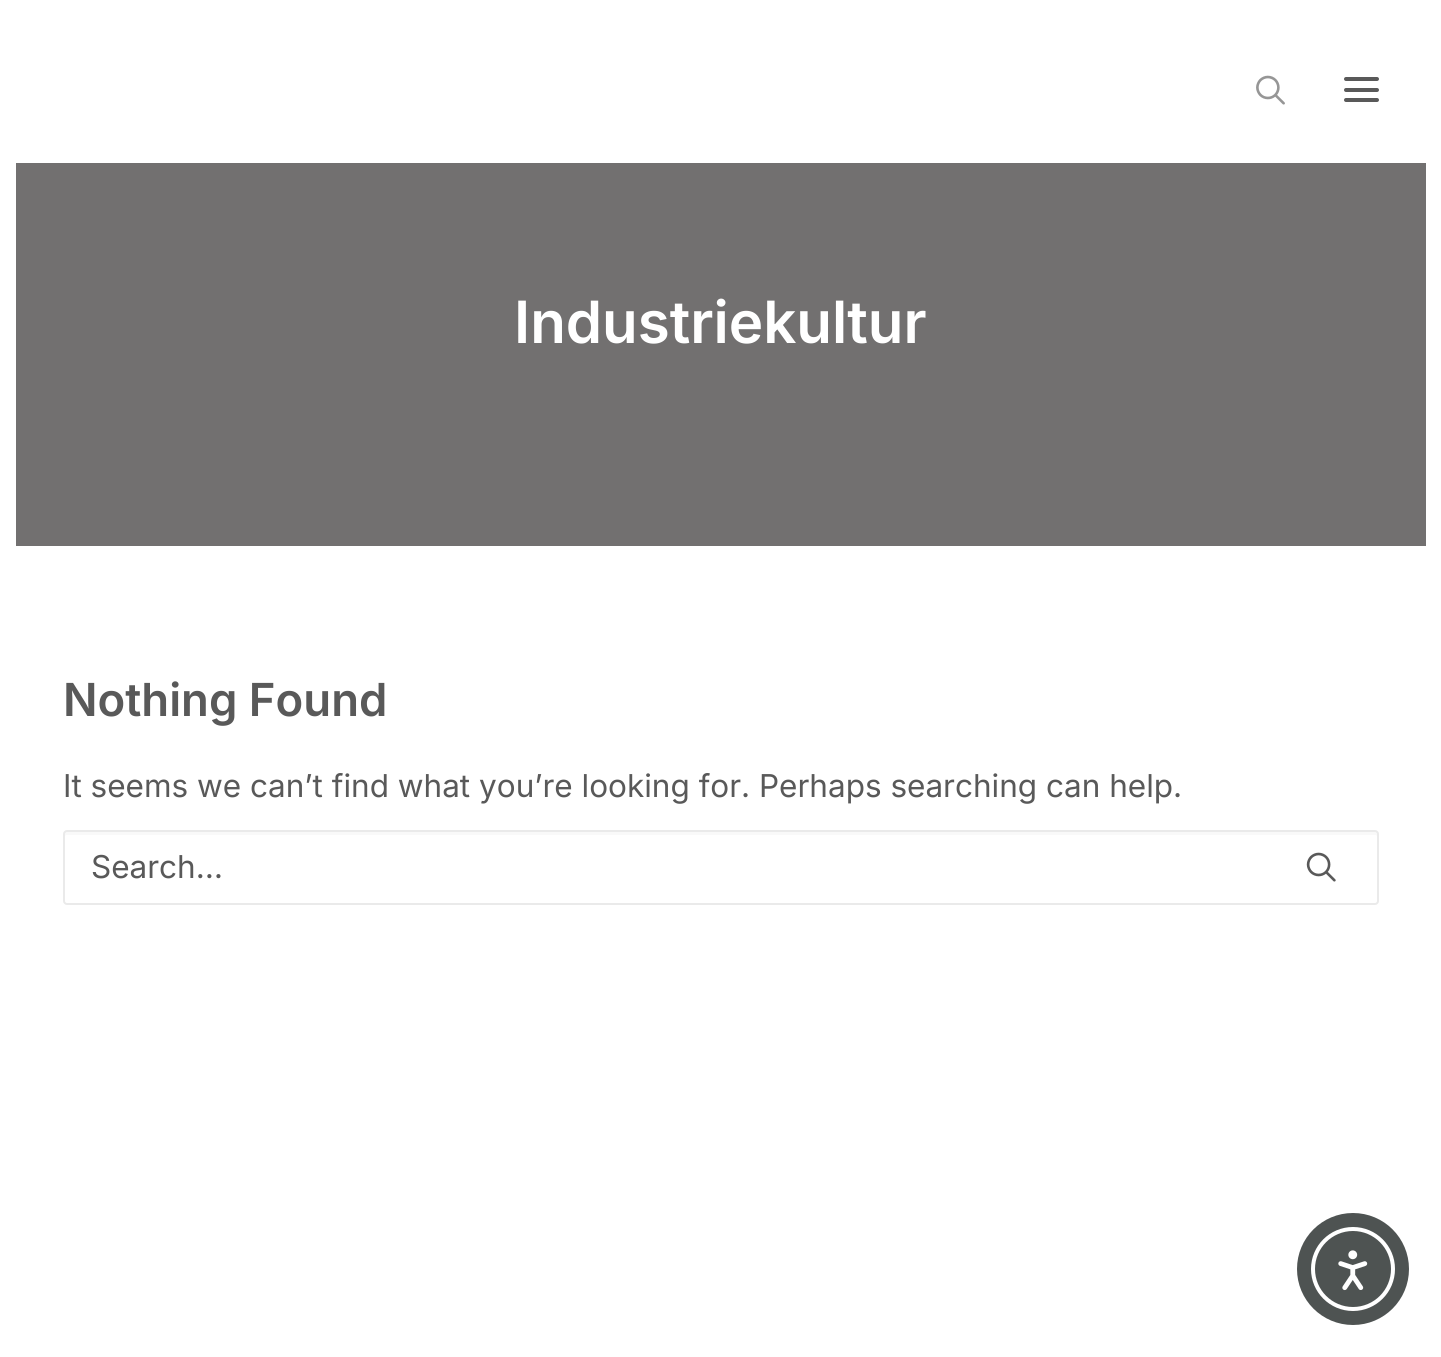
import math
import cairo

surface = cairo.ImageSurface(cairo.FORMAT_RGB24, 1441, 1357)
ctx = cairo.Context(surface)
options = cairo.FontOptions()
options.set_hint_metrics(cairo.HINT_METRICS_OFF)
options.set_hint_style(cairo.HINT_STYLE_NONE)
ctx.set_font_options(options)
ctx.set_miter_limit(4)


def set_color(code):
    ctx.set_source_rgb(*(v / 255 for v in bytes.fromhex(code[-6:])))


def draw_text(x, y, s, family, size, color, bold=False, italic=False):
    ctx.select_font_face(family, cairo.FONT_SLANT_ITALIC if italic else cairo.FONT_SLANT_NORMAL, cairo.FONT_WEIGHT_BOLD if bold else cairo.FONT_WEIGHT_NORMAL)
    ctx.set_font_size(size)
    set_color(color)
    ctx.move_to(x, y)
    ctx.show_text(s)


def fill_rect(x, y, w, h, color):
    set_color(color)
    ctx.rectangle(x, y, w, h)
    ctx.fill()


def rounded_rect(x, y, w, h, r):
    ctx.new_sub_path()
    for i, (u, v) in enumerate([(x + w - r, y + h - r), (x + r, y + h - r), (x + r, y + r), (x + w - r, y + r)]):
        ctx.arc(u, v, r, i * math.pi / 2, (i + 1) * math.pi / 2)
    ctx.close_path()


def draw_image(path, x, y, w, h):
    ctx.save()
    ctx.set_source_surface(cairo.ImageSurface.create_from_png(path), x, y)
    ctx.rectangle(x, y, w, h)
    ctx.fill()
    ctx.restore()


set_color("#ffffff")
ctx.paint()
draw_image("assets/img1.png", 1256, 75, 29, 30)
set_color("#595959")
rounded_rect(1344, 88, 35, 4, 2)
ctx.fill()
rounded_rect(1344, 77, 35, 4, 2)
ctx.fill()
rounded_rect(1344, 98, 35, 4, 2)
ctx.fill()
fill_rect(16, 163, 1410, 383, "#727070")
draw_text(514, 343, "Industriekultur", "Inter SemiBold", 58.25, "#ffffff")
draw_text(63, 716, "Nothing Found", "Inter SemiBold", 45.5, "#595959")
draw_text(63, 797, "It seems we can’t find what you’re looking for. Perhaps searching can help.", "Inter", 31.5, "#595959")
set_color("#f9f9f9")
ctx.new_path()
ctx.move_to(66, 835)
ctx.line_to(1376, 835)
ctx.line_to(1377, 836)
ctx.curve_to(1377, 834, 1378, 831, 1375, 831)
ctx.line_to(67, 831)
ctx.line_to(65, 832)
ctx.line_to(65, 836)
ctx.close_path()
ctx.fill()
rounded_rect(64, 831, 1314, 73, 3)
set_color("#eaeaea")
ctx.stroke()
draw_text(91, 878, "Search…", "Inter", 31.5, "#595959")
draw_image("assets/img2.png", 1306, 852, 30, 30)
set_color("#4e5352")
ctx.arc(1353, 1269, 56, 0, 2 * math.pi)
ctx.fill()
ctx.arc(1353, 1269, 40, 0, 2 * math.pi)
set_color("#ffffff")
ctx.set_line_width(4)
ctx.stroke()
draw_image("assets/img3.png", 1338, 1250, 30, 41)
surface.write_to_png("output.png")
